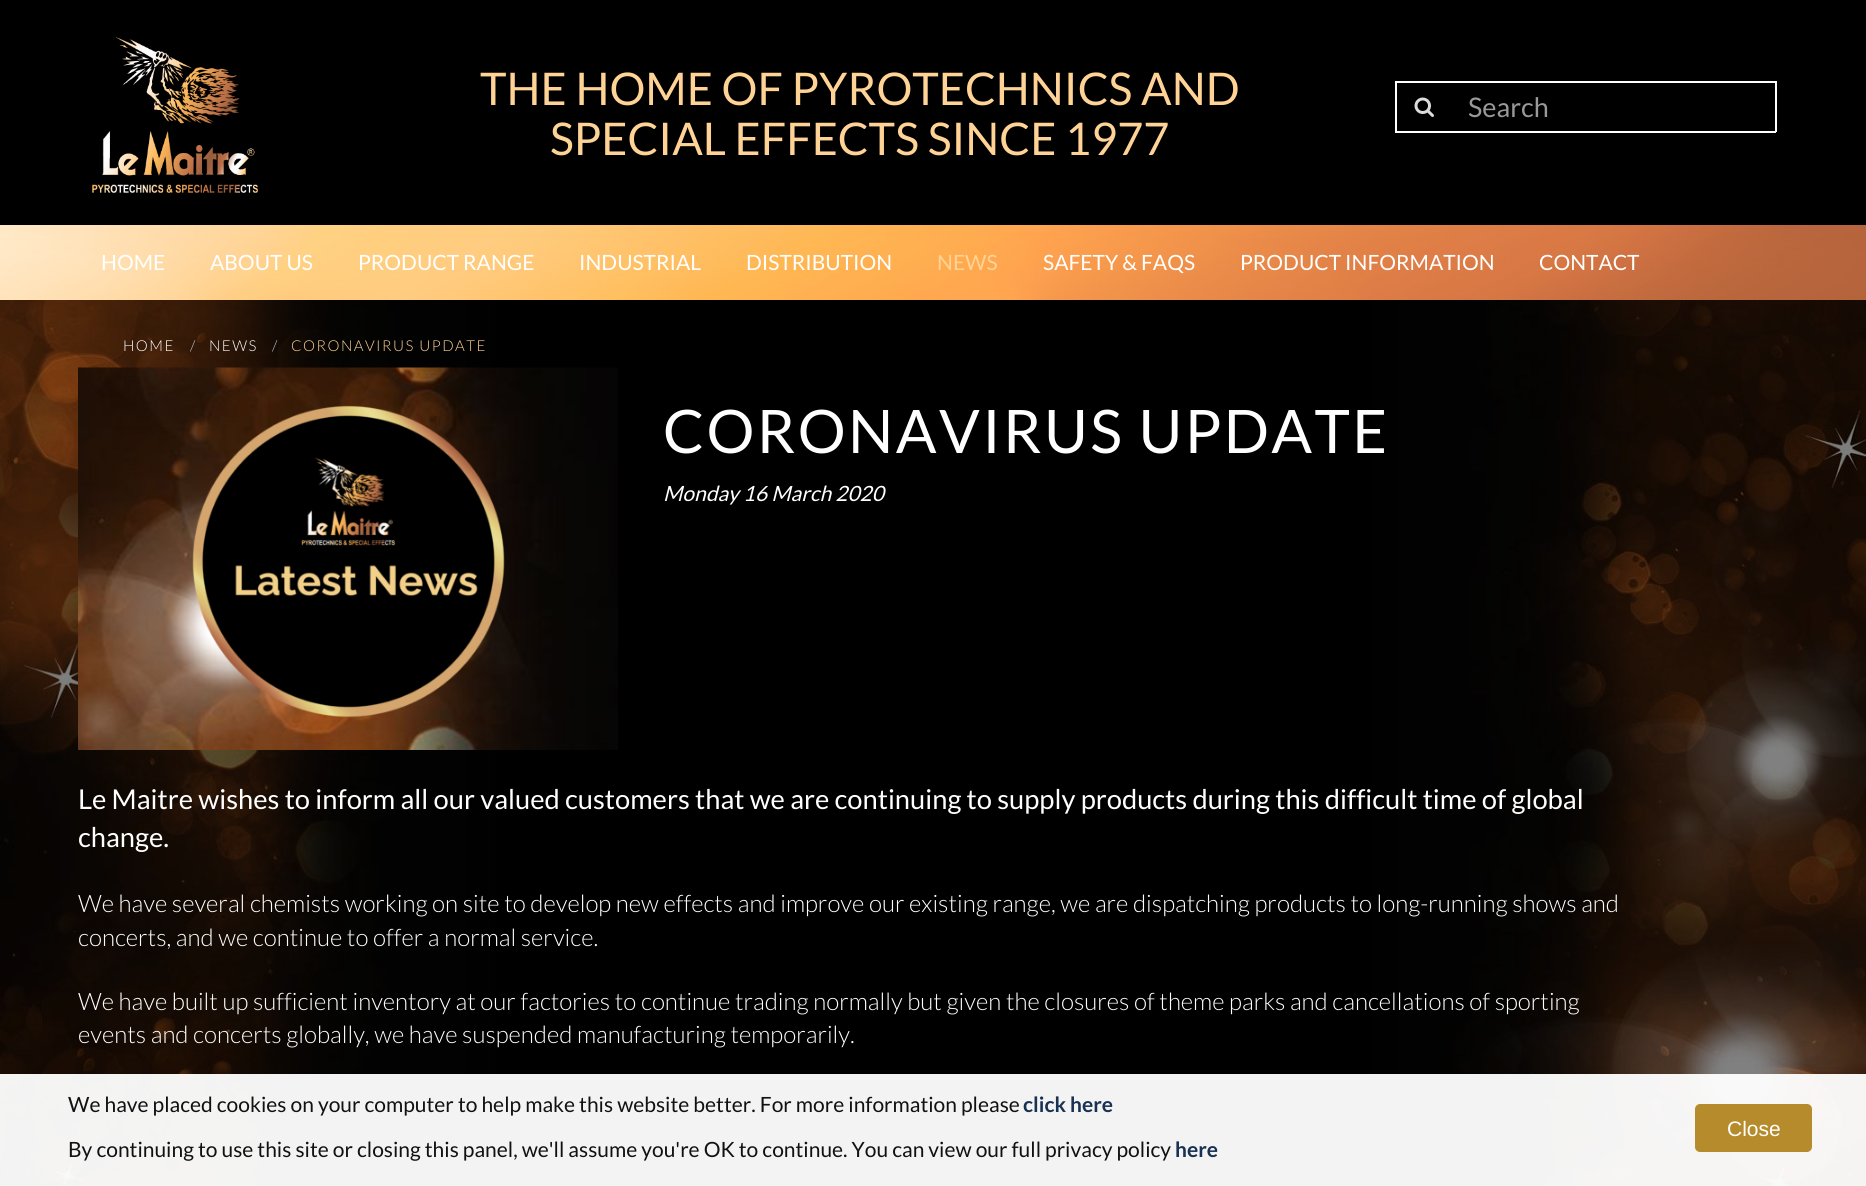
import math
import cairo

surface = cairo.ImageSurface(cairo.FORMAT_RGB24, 1866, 1186)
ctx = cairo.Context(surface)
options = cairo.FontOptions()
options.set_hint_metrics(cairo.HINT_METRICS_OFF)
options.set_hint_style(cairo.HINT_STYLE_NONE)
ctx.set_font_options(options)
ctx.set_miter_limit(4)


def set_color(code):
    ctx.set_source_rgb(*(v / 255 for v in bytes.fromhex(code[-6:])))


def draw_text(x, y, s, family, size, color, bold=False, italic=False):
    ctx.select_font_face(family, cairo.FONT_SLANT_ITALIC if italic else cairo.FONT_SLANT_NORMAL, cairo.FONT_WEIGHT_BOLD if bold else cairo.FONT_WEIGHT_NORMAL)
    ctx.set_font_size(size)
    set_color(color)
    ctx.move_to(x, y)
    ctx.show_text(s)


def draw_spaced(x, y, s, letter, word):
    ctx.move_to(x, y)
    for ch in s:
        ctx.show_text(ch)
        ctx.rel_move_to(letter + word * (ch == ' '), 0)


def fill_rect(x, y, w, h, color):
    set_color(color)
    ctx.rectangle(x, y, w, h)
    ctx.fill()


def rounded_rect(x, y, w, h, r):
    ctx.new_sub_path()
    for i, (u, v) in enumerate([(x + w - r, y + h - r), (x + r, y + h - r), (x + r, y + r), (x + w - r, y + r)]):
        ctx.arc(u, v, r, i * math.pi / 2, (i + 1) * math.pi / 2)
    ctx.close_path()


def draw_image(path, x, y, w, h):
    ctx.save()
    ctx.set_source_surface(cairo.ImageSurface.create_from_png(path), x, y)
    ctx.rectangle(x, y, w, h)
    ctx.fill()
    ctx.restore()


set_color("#000000")
ctx.paint()
draw_image("assets/img1.png", 92, 36, 166, 157)
draw_text(480, 105, "THE HOME OF PYROTECHNICS AND", "Lato", 45, "#ffd395")
draw_text(550, 155, "SPECIAL EFFECTS SINCE 1977", "Lato", 45, "#ffd395")
fill_rect(1395, 81, 381, 2, "#ffffff")
fill_rect(1395, 131, 57, 2, "#ffffff")
fill_rect(1395, 81, 2, 51, "#ffffff")
draw_image("assets/img2.png", 1414, 97, 20, 20)
fill_rect(1775, 81, 2, 51, "#ffffff")
fill_rect(1451, 131, 325, 2, "#ffffff")
draw_text(1468, 117, "Search", "Lato", 27, "#999999")
draw_image("assets/img3.png", 0, 225, 1866, 75)
draw_text(101, 270, "HOME", "Lato", 21, "#ffffff")
draw_text(210, 270, "ABOUT US", "Lato", 21, "#ffffff")
draw_text(358, 270, "PRODUCT RANGE", "Lato", 21, "#ffffff")
draw_text(579, 270, "INDUSTRIAL", "Lato", 21, "#ffffff")
draw_text(746, 270, "DISTRIBUTION", "Lato", 21, "#ffffff")
draw_text(937, 270, "NEWS", "Lato", 21, "#ffd395")
draw_text(1043, 270, "SAFETY & FAQS", "Lato", 21, "#ffffff")
draw_text(1240, 270, "PRODUCT INFORMATION", "Lato", 21, "#ffffff")
draw_text(1539, 270, "CONTACT", "Lato", 21, "#ffffff")
draw_image("assets/img4.png", 0, 300, 1866, 886)
ctx.select_font_face("Lato Light")
ctx.set_font_size(15)
draw_spaced(123, 351, "HOME", 1.5, 0)
set_color("#cccccc")
draw_spaced(190, 351, "/", 1.5, 0)
set_color("#ffffff")
draw_spaced(209, 351, "NEWS", 1.5, 0)
set_color("#cccccc")
draw_spaced(272, 351, "/", 1.5, 0)
set_color("#ffd395")
draw_spaced(291, 351, "CORONAVIRUS UPDATE", 1.5, 0)
draw_image("assets/img5.png", 78, 367, 540, 383)
ctx.select_font_face("Lato")
ctx.set_font_size(60)
set_color("#ffffff")
draw_spaced(663, 453, "CORONAVIRUS UPDATE", 2.4, 0)
draw_text(663, 501, "Monday 16 March 2020", "Lato", 21, "#ffffff", italic=True)
draw_text(78, 809, "Le Maitre wishes to inform all our valued customers that we are continuing to supply products during this difficult time of global", "Lato", 27.3, "#ffffff")
draw_text(78, 847, "change.", "Lato", 27.3, "#ffffff")
draw_text(78, 912, "We have several chemists working on site to develop new effects and improve our existing range, we are dispatching products to long-running shows and", "Lato Light", 24, "#ffffff")
draw_text(78, 946, "concerts, and we continue to offer a normal service.", "Lato Light", 24, "#ffffff")
draw_text(78, 1010, "We have built up sufficient inventory at our factories to continue trading normally but given the closures of theme parks and cancellations of sporting", "Lato Light", 24, "#ffffff")
draw_text(78, 1043, "events and concerts globally, we have suspended manufacturing temporarily.", "Lato Light", 24, "#ffffff")
ctx.set_source_rgba(1, 1, 1, 0.95)
ctx.rectangle(0, 1074, 1866, 112)
ctx.fill()
draw_text(68, 1112, "We have placed cookies on your computer to help make this website better. For more information please", "Lato", 21, "#111111")
draw_text(1023, 1112, "click here", "Lato", 21, "#193153", bold=True)
draw_text(68, 1157, "By continuing to use this site or closing this panel, we'll assume you're OK to continue. You can view our full privacy policy", "Lato", 21, "#111111")
draw_text(1175, 1157, "here", "Lato", 21, "#193153", bold=True)
set_color("#b68b2c")
rounded_rect(1696, 1105, 115, 46, 4)
ctx.fill_preserve()
ctx.stroke()
draw_text(1727, 1136, "Close", "Liberation Sans", 21, "#ffffff")
surface.write_to_png("output.png")
